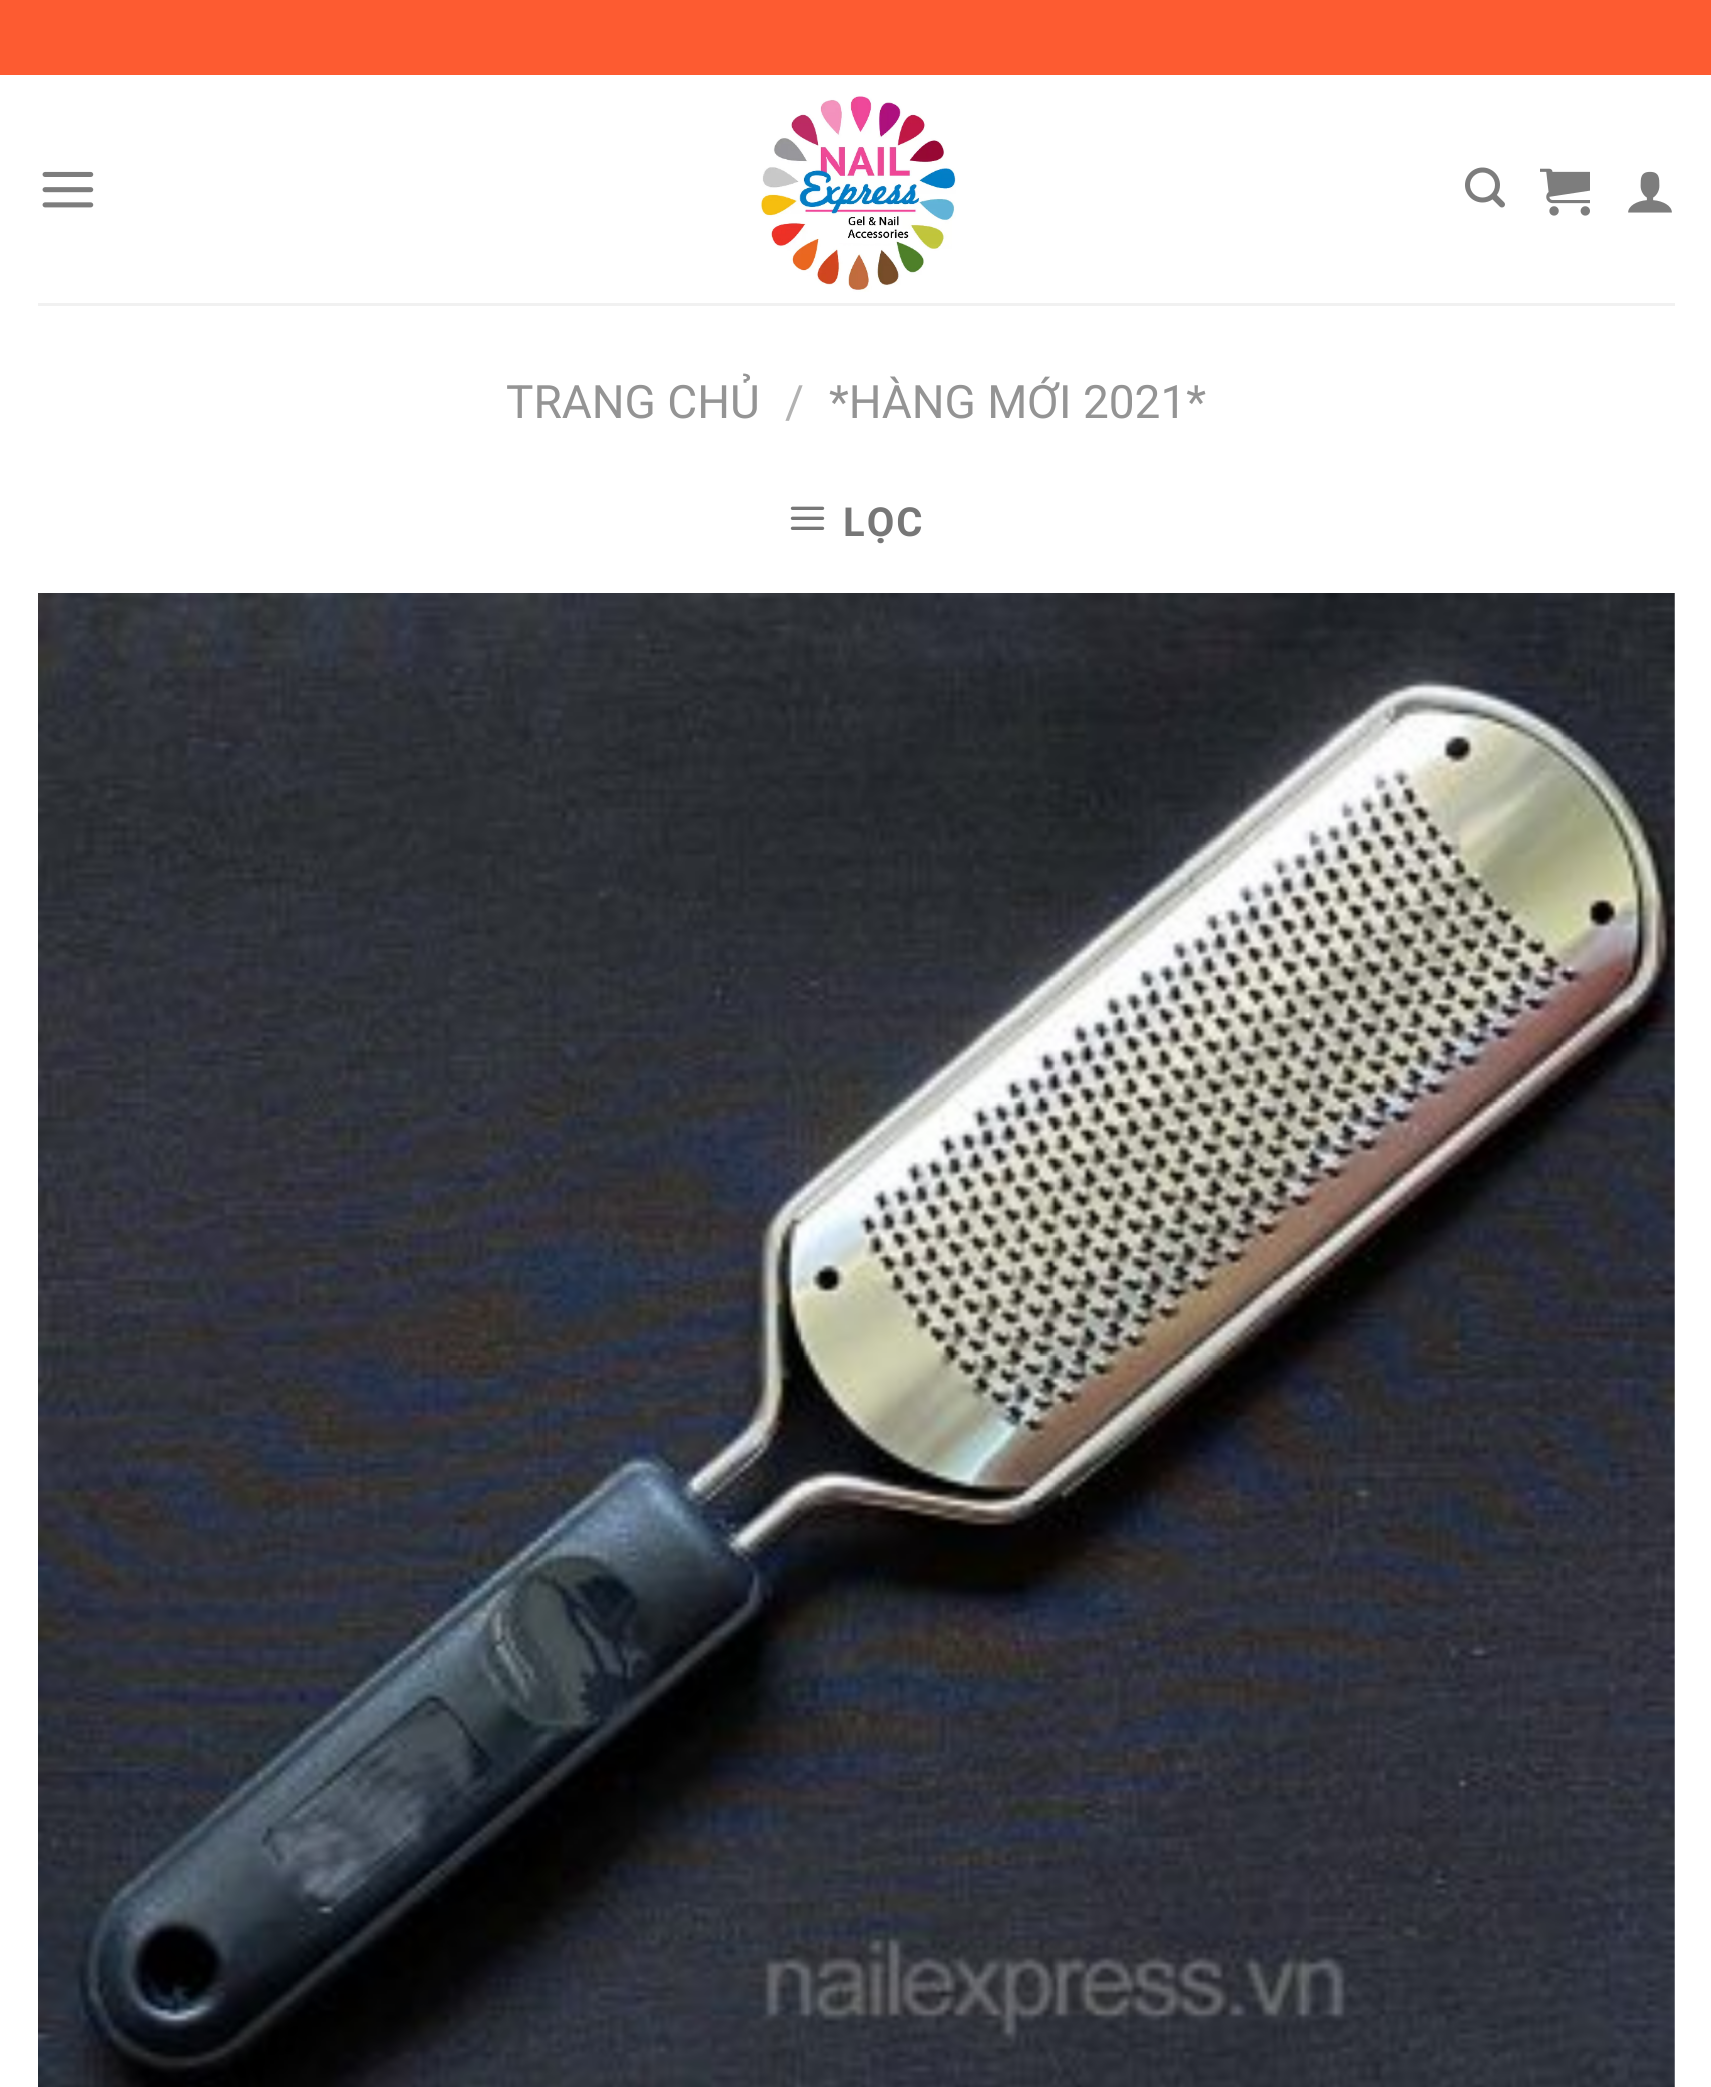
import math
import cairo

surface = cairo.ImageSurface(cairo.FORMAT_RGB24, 1711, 2087)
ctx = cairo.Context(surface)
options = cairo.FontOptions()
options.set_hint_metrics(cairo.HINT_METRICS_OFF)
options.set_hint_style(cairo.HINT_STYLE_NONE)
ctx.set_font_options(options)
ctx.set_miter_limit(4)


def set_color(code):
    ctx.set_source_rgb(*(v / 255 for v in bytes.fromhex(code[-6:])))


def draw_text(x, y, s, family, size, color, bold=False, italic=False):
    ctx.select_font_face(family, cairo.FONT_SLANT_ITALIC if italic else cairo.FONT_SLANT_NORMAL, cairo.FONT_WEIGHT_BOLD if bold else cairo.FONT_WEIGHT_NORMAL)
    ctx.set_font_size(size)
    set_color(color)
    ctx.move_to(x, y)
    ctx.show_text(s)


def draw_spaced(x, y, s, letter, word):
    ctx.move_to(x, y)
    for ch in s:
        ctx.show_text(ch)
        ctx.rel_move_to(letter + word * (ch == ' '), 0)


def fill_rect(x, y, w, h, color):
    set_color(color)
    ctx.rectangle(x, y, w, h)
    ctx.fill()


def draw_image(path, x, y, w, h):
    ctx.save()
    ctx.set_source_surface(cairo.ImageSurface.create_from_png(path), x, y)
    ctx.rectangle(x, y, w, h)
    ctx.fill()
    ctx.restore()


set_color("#ffffff")
ctx.paint()
fill_rect(0, 0, 1711, 75, "#fd5b31")
draw_image("assets/img1.png", 42, 171, 52, 37)
draw_image("assets/img2.png", 760, 95, 196, 197)
draw_image("assets/img3.png", 1465, 167, 40, 41)
draw_image("assets/img4.png", 1540, 168, 50, 48)
draw_image("assets/img5.png", 1628, 171, 44, 42)
fill_rect(38, 303, 1637, 3, "#f1f1f1")
draw_text(506, 418, "TRANG CHỦ", "Roboto", 46, "#949494")
draw_text(785, 418, "/", "Roboto", 46, "#b2b2b2")
draw_text(829, 418, "*HÀNG MỚI 2021*", "Roboto", 46, "#949494")
draw_image("assets/img6.png", 790, 506, 35, 24)
ctx.select_font_face("Roboto", cairo.FONT_SLANT_NORMAL, cairo.FONT_WEIGHT_BOLD)
ctx.set_font_size(40)
set_color("#777777")
draw_spaced(843, 536, "LỌC", 2, 0)
draw_image("assets/img7.png", 38, 593, 1637, 1494)
surface.write_to_png("output.png")
